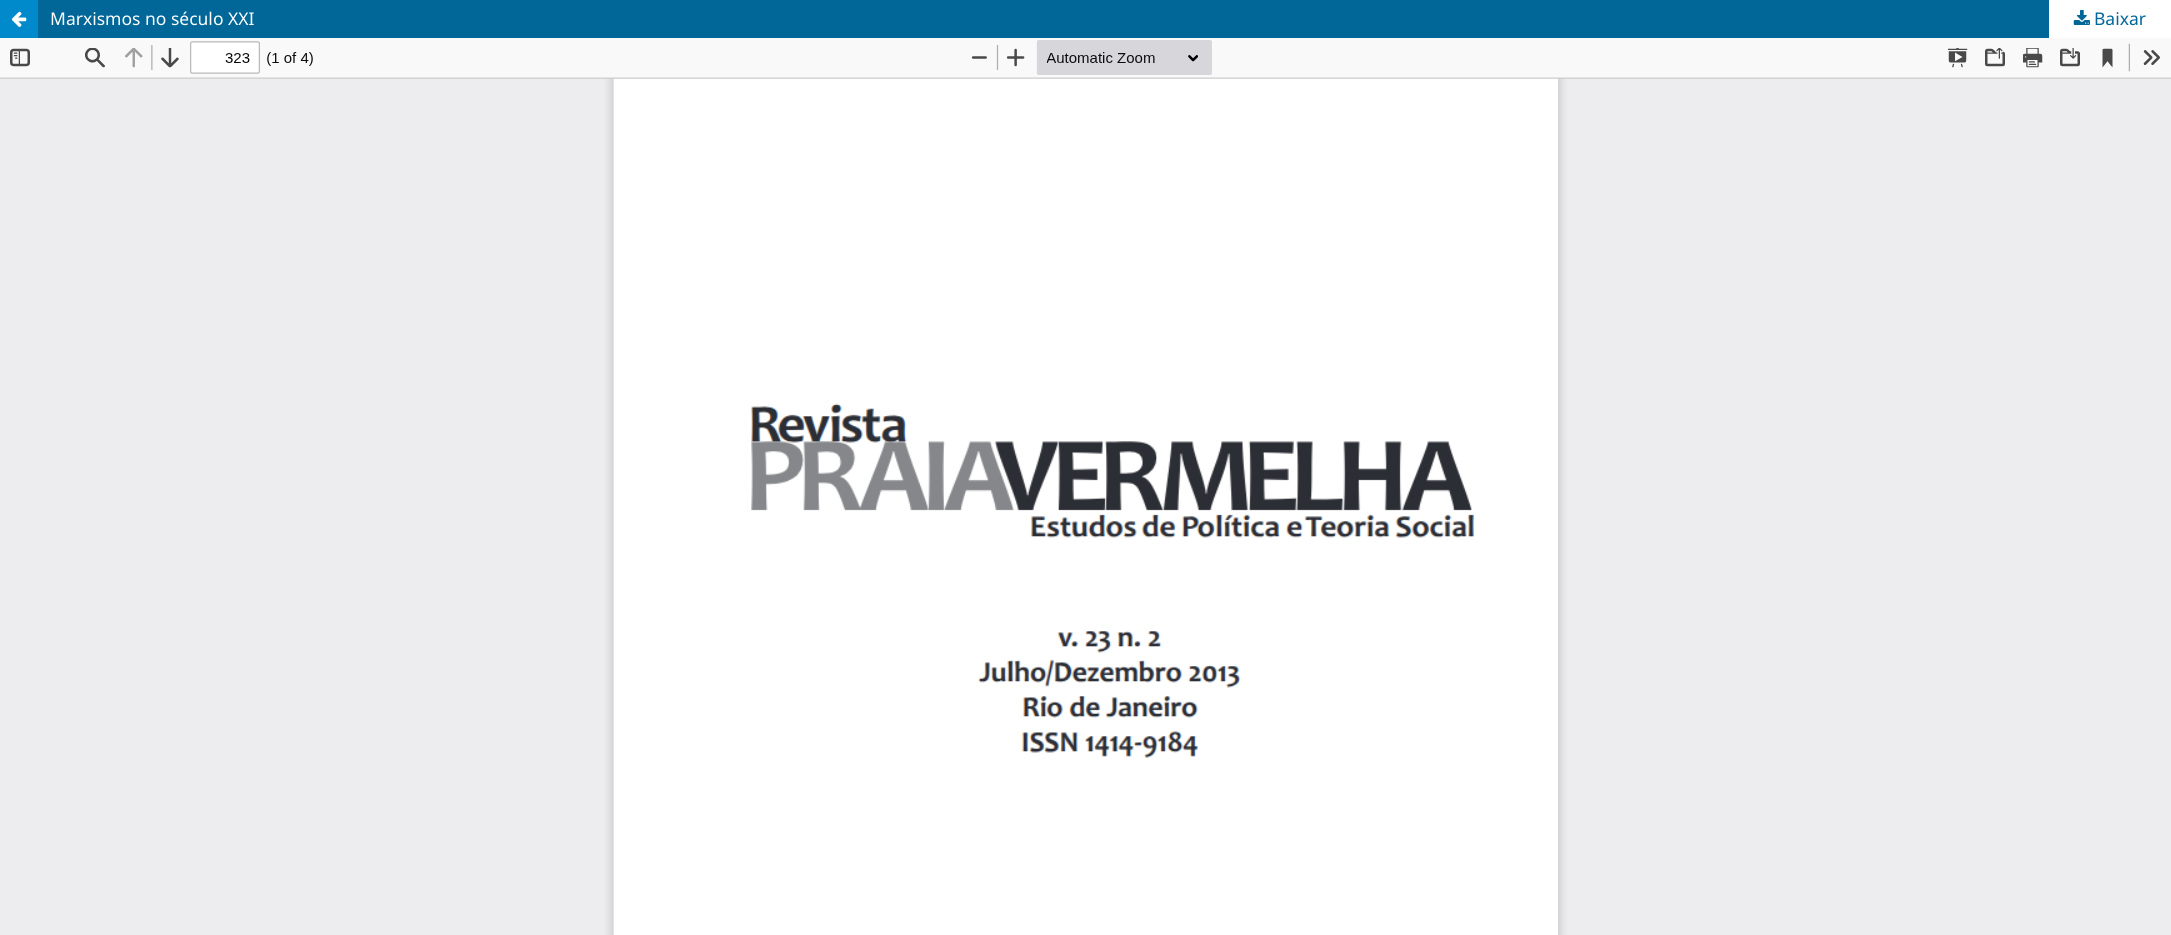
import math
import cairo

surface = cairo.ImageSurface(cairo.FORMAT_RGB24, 2171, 935)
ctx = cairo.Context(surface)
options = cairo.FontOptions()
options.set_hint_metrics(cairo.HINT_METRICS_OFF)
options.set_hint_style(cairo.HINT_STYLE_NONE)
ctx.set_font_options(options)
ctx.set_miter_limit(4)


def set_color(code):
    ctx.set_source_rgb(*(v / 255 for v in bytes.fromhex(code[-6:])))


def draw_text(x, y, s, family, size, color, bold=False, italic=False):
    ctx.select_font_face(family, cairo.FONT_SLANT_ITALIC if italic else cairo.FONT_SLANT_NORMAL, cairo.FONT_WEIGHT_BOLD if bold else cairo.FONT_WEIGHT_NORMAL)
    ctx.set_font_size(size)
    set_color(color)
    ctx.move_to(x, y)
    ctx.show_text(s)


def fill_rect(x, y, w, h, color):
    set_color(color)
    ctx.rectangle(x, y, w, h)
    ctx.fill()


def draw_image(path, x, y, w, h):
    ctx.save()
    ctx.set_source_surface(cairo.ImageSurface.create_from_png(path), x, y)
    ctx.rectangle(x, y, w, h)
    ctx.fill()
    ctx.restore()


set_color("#ffffff")
ctx.paint()
fill_rect(38, 0, 2011, 38, "#006798")
fill_rect(0, 0, 38, 38, "#008acb")
draw_image("assets/img1.png", 11, 11, 16, 16)
draw_text(50, 25, "Marxismos no século XXI", "Noto Sans", 17.5, "#ffffff")
draw_image("assets/img2.png", 2073, 10, 17, 15)
draw_text(2094, 25, "Baixar", "Noto Sans", 17.5, "#006798")
draw_image("assets/img3.png", 0, 38, 2171, 897)
surface.write_to_png("output.png")
